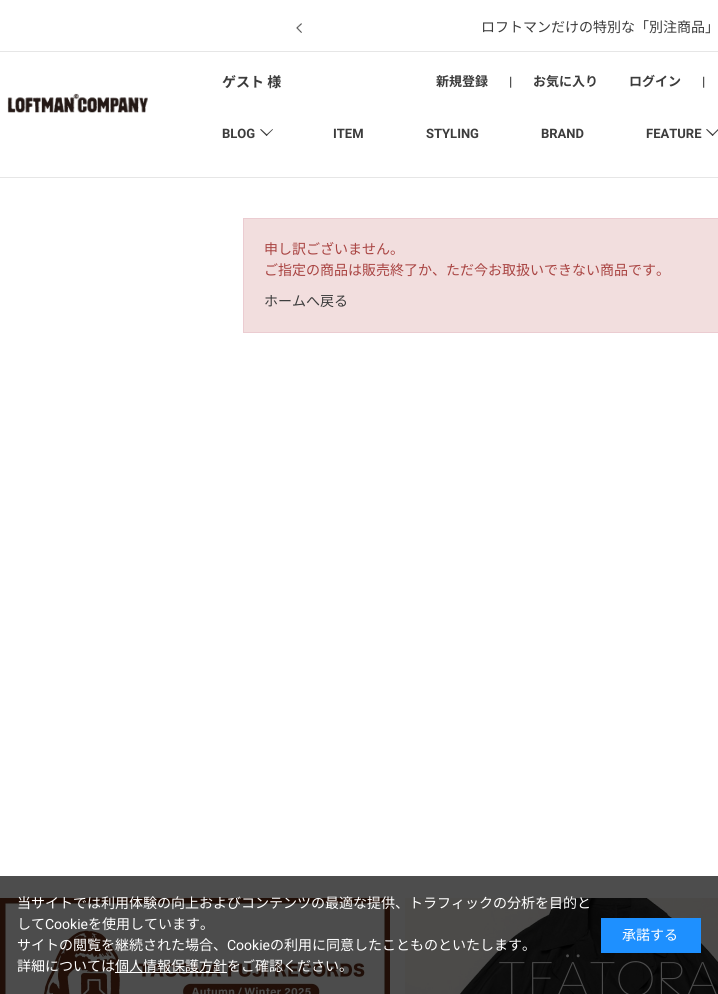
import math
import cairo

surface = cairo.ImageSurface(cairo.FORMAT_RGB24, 718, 994)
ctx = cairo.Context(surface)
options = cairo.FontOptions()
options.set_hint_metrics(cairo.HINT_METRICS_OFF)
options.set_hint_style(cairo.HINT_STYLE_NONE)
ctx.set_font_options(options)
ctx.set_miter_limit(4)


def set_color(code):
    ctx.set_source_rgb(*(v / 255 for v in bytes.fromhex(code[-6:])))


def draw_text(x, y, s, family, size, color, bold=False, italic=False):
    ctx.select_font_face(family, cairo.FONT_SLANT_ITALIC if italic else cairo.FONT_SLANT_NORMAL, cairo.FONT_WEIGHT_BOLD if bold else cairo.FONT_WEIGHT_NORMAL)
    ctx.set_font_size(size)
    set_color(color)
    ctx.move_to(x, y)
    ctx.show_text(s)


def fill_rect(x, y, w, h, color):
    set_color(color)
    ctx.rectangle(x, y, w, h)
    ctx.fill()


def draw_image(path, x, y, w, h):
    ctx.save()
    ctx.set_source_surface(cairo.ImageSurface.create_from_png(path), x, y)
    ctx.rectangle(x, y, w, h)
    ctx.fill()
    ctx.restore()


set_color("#ffffff")
ctx.paint()
fill_rect(0, 876, 718, 118, "#4d4d4d")
draw_image("assets/img1.png", 296, 23, 6, 10)
draw_text(481, 32, "ロフトマンだけの特別な「別注商品」", "Noto Sans JP", 14, "#3c3c3c")
fill_rect(0, 51, 718, 1, "#e6e6e6")
fill_rect(0, 177, 718, 1, "#e6e6e6")
draw_image("assets/img2.png", 7, 93, 141, 20)
draw_text(222, 87, "ゲスト 様", "Noto Sans JP", 14, "#3c3c3c", bold=True)
draw_text(436, 86, "新規登録", "Noto Sans JP", 13, "#3c3c3c", bold=True)
draw_text(509, 86, "|", "Roboto", 13, "#3c3c3c", bold=True)
draw_text(533, 86, "お気に入り", "Noto Sans JP", 13, "#3c3c3c", bold=True)
draw_text(629, 86, "ログイン", "Noto Sans JP", 13, "#3c3c3c", bold=True)
draw_text(702, 86, "|", "Roboto", 13, "#3c3c3c", bold=True)
draw_text(222, 138, "BLOG", "Roboto", 13, "#3c3c3c", bold=True)
ctx.new_path()
ctx.move_to(272.5, 129)
ctx.line_to(273, 129.5)
ctx.line_to(266.5, 136)
ctx.line_to(266, 135)
ctx.close_path()
ctx.fill()
ctx.new_path()
ctx.move_to(261, 129)
ctx.line_to(267.5, 135)
ctx.line_to(266.5, 136)
ctx.line_to(260, 129.5)
ctx.close_path()
ctx.fill()
draw_text(333, 138, "ITEM", "Roboto", 13, "#3c3c3c", bold=True)
draw_text(426, 138, "STYLING", "Roboto", 13, "#3c3c3c", bold=True)
draw_text(541, 138, "BRAND", "Roboto", 13, "#3c3c3c", bold=True)
draw_text(646, 138, "FEATURE", "Roboto", 13, "#3c3c3c", bold=True)
ctx.new_path()
ctx.move_to(718, 129)
ctx.line_to(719, 129.5)
ctx.line_to(712.5, 136)
ctx.line_to(712, 135)
ctx.close_path()
ctx.fill()
ctx.new_path()
ctx.move_to(707, 129)
ctx.line_to(713.5, 135)
ctx.line_to(712.5, 136)
ctx.line_to(706, 129.5)
ctx.close_path()
ctx.fill()
set_color("#f2dede")
ctx.rectangle(243.5, 218.5, 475, 114)
ctx.fill_preserve()
set_color("#ebccd1")
ctx.set_line_width(1)
ctx.stroke()
draw_text(264, 254, "申し訳ございません。", "Noto Sans JP", 14, "#a94442")
draw_text(264, 275, "ご指定の商品は販売終了か、ただ今お取扱いできない商品です。", "Noto Sans JP", 14, "#a94442")
draw_text(264, 306, "ホームへ戻る", "Noto Sans JP", 14, "#3c3c3c")
draw_image("assets/img3.png", 0, 898, 390, 96)
draw_image("assets/img4.png", 405, 898, 313, 96)
draw_text(17, 908, "当サイトでは利用体験の向上およびコンテンツの最適な提供、トラフィックの分析を目的と", "Noto Sans JP", 14, "#ffffff")
draw_text(17, 929, "して", "Noto Sans JP", 14, "#ffffff")
draw_text(45, 929, "Cookie", "Roboto", 14, "#ffffff")
draw_text(88, 929, "を使用しています。", "Noto Sans JP", 14, "#ffffff")
draw_text(17, 950, "サイトの閲覧を継続された場合、", "Noto Sans JP", 14, "#ffffff")
draw_text(227, 950, "Cookie", "Roboto", 14, "#ffffff")
draw_text(270, 950, "の利用に同意したことものといたします。", "Noto Sans JP", 14, "#ffffff")
draw_text(17, 971, "詳細については", "Noto Sans JP", 14, "#ffffff")
fill_rect(115, 972, 112, 1, "#ffffff")
draw_text(115, 971, "個人情報保護方針をご確認ください。", "Noto Sans JP", 14, "#ffffff")
fill_rect(601, 918, 100, 35, "#1e90ff")
draw_text(622, 940, "承諾する", "Noto Sans JP", 14, "#ffffff")
surface.write_to_png("output.png")
